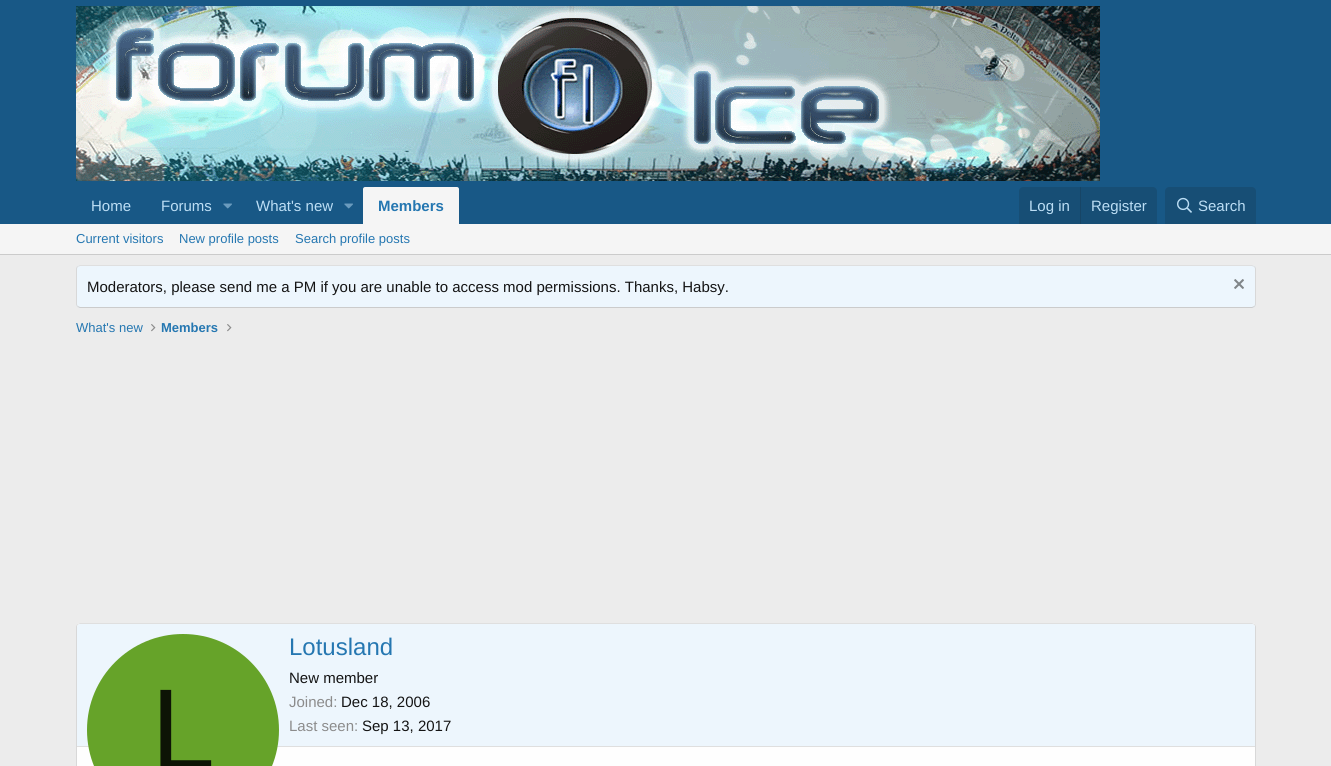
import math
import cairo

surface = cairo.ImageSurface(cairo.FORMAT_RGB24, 1331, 766)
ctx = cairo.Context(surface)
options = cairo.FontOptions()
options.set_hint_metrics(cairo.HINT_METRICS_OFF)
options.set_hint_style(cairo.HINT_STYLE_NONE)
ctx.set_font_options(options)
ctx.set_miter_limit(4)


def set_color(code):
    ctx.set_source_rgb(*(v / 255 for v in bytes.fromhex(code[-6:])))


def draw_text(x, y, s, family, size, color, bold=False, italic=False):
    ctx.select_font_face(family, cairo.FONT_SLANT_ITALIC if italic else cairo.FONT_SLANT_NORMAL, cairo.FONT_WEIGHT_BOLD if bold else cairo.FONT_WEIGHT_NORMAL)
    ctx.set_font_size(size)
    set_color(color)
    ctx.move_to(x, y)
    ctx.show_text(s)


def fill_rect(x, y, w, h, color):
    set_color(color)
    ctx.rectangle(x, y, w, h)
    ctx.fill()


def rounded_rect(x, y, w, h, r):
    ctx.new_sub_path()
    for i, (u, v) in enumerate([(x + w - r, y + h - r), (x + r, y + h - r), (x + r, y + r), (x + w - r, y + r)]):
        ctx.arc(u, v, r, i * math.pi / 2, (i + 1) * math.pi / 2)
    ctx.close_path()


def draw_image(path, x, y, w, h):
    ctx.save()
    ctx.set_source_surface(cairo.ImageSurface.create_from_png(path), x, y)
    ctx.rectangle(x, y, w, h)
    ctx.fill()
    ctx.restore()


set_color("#ececec")
ctx.paint()
fill_rect(0, 0, 1331, 224, "#185886")
draw_image("assets/img1.png", 76, 6, 1024, 175)
draw_text(91, 211, "Home", "Liberation Sans", 15, "#bcdef5")
draw_text(161, 211, "Forums", "Liberation Sans", 15, "#bcdef5")
draw_image("assets/img2.png", 223, 203, 9, 6)
draw_text(256, 211, "What's new", "Liberation Sans", 15, "#bcdef5")
draw_image("assets/img2.png", 344, 203, 9, 6)
set_color("#f5f5f5")
ctx.new_path()
ctx.move_to(365, 187)
ctx.line_to(457, 187)
ctx.curve_to(458, 187, 459, 188, 459, 189)
ctx.line_to(459, 224)
ctx.line_to(363, 224)
ctx.line_to(363, 189)
ctx.curve_to(363, 188, 364, 187, 365, 187)
ctx.close_path()
ctx.fill()
draw_text(378, 211, "Members", "Liberation Sans", 15, "#2577b1", bold=True)
set_color("#174e75")
ctx.new_path()
ctx.move_to(1023, 187)
ctx.line_to(1153, 187)
ctx.curve_to(1155, 187, 1157, 189, 1157, 191)
ctx.line_to(1157, 224)
ctx.line_to(1019, 224)
ctx.line_to(1019, 191)
ctx.curve_to(1019, 189, 1021, 187, 1023, 187)
ctx.close_path()
ctx.fill()
draw_text(1029, 211, "Log in", "Liberation Sans", 15, "#bcdef5")
fill_rect(1080, 187, 1, 37, "#174566")
draw_text(1091, 211, "Register", "Liberation Sans", 15, "#bcdef5")
set_color("#174e75")
ctx.new_path()
ctx.move_to(1169, 187)
ctx.line_to(1252, 187)
ctx.curve_to(1254, 187, 1256, 189, 1256, 191)
ctx.line_to(1256, 224)
ctx.line_to(1165, 224)
ctx.line_to(1165, 191)
ctx.curve_to(1165, 189, 1167, 187, 1169, 187)
ctx.close_path()
ctx.fill()
draw_image("assets/img3.png", 1177, 197, 15, 16)
draw_text(1198, 211, "Search", "Liberation Sans", 15, "#bcdef5")
fill_rect(0, 224, 1331, 30, "#f5f5f5")
fill_rect(0, 254, 1331, 1, "#cbcbcb")
draw_text(76, 243, "Current visitors", "Liberation Sans", 13, "#2577b1")
draw_text(179, 243, "New profile posts", "Liberation Sans", 13, "#2577b1")
draw_text(295, 243, "Search profile posts", "Liberation Sans", 13, "#2577b1")
set_color("#edf6fd")
rounded_rect(76, 265, 1180, 43, 4)
ctx.fill()
ctx.new_path()
ctx.move_to(77.5, 266.5)
ctx.line_to(80, 265.5)
ctx.line_to(1252, 265.5)
ctx.line_to(1254.5, 266.5)
set_color("#dfdfdf")
ctx.set_line_width(1)
ctx.stroke()
ctx.new_path()
ctx.move_to(1254.5, 266.5)
ctx.curve_to(1255, 267, 1255.5, 268, 1255.5, 269)
ctx.line_to(1255.5, 304)
ctx.curve_to(1255.5, 305, 1255, 306, 1254.5, 306.5)
set_color("#d8d8d8")
ctx.stroke()
ctx.new_path()
ctx.move_to(1254.5, 306.5)
ctx.line_to(1252, 307.5)
ctx.line_to(80, 307.5)
ctx.line_to(77.5, 306.5)
set_color("#cbcbcb")
ctx.stroke()
ctx.new_path()
ctx.move_to(77.5, 306.5)
ctx.curve_to(77, 306, 76.5, 305, 76.5, 304)
ctx.line_to(76.5, 269)
ctx.curve_to(76.5, 268, 77, 267, 77.5, 266.5)
set_color("#d8d8d8")
ctx.stroke()
draw_text(87, 292, "Moderators, please send me a PM if you are unable to access mod permissions. Thanks, Habsy.", "Liberation Sans", 15, "#141414")
draw_image("assets/img4.png", 1234, 279, 10, 10)
draw_text(76, 332, "What's new", "Liberation Sans", 13, "#2577b1")
draw_image("assets/img5.png", 151, 324, 5, 8)
draw_text(161, 332, "Members", "Liberation Sans", 13, "#2577b1", bold=True)
draw_image("assets/img5.png", 227, 324, 5, 8)
set_color("#fefefe")
rounded_rect(76, 623, 1180, 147, 4)
ctx.fill()
ctx.new_path()
ctx.move_to(77.5, 624.5)
ctx.line_to(80, 623.5)
ctx.line_to(1252, 623.5)
ctx.line_to(1254.5, 624.5)
set_color("#dfdfdf")
ctx.stroke()
ctx.new_path()
ctx.move_to(1254.5, 624.5)
ctx.curve_to(1255, 625, 1255.5, 626, 1255.5, 627)
ctx.line_to(1255.5, 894)
ctx.curve_to(1255.5, 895, 1255, 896, 1254.5, 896.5)
set_color("#d8d8d8")
ctx.stroke()
ctx.new_path()
ctx.move_to(77.5, 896.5)
ctx.curve_to(77, 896, 76.5, 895, 76.5, 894)
ctx.line_to(76.5, 627)
ctx.curve_to(76.5, 626, 77, 625, 77.5, 624.5)
ctx.stroke()
set_color("#edf6fd")
ctx.new_path()
ctx.move_to(80, 624)
ctx.line_to(1252, 624)
ctx.curve_to(1253.5, 624, 1255, 625.5, 1255, 627)
ctx.line_to(1255, 747)
ctx.line_to(77, 747)
ctx.line_to(77, 627)
ctx.curve_to(77, 625.5, 78.5, 624, 80, 624)
ctx.close_path()
ctx.fill()
fill_rect(77, 746, 1178, 1, "#dfdfdf")
set_color("#66a329")
ctx.arc(183, 730, 96, 0, 2 * math.pi)
ctx.fill()
draw_text(151, 769, "L", "Liberation Sans", 115, "#0d1405")
draw_text(289, 655, "Lotusland", "Liberation Sans", 24, "#2577b1")
draw_text(289, 683, "New member", "Liberation Sans", 15, "#141414")
draw_text(289, 707, "Joined:", "Liberation Sans", 15, "#8c8c8c")
draw_text(341, 707, "Dec 18, 2006", "Liberation Sans", 15, "#141414")
draw_text(289, 731, "Last seen:", "Liberation Sans", 15, "#8c8c8c")
draw_text(362, 731, "Sep 13, 2017", "Liberation Sans", 15, "#141414")
surface.write_to_png("output.png")
